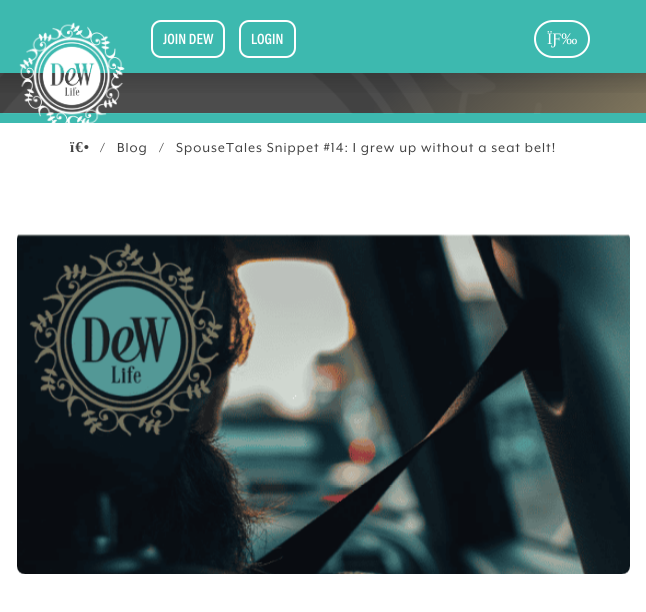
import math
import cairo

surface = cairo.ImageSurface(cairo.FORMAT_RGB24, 646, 612)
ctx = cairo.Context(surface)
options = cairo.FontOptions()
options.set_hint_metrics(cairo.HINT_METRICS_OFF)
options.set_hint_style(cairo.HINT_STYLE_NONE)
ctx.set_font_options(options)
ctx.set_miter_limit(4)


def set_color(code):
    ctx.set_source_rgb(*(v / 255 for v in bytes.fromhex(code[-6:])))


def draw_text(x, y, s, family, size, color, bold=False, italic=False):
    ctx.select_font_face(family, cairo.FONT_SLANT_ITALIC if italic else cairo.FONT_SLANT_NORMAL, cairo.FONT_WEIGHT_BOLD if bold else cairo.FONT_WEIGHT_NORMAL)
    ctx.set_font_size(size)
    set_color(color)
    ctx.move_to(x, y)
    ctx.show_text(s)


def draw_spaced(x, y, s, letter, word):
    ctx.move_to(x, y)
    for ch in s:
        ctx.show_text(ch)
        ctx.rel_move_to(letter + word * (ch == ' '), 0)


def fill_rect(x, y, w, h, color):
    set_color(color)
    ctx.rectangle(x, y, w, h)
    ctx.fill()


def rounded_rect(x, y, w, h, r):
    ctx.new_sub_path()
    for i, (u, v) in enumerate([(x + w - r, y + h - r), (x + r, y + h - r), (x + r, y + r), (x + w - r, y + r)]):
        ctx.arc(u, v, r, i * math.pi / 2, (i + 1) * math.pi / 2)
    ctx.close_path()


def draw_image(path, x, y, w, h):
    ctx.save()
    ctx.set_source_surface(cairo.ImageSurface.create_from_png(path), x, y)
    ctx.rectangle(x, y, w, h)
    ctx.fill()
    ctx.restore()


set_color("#ffffff")
ctx.paint()
fill_rect(0, 0, 646, 73, "#3db9af")
fill_rect(0, 73, 646, 40, "#424242")
fill_rect(0, 113, 646, 10, "#3db9af")
draw_image("assets/img3.png", 0, 73, 542, 41)
gradient = cairo.LinearGradient(172, -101, 474, 258)
gradient.add_color_stop_rgba(0, 0.09, 0.09, 0.09, 0)
gradient.add_color_stop_rgba(0.61, 0.498, 0.459, 0.361, 0)
gradient.add_color_stop_rgba(1, 0.498, 0.459, 0.361, 1)
ctx.set_source(gradient)
ctx.rectangle(374, 73, 272, 40)
ctx.fill()
draw_image("assets/img2.png", 0, 73, 646, 20)
draw_image("assets/img1.png", 19, 22, 106, 101)
rounded_rect(152, 21, 72, 36, 9)
set_color("#ffffff")
ctx.stroke()
draw_text(163, 44, "JOIN DEW", "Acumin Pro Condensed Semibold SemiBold", 15, "#ffffff")
rounded_rect(240, 21, 55, 36, 9)
ctx.stroke()
draw_text(251, 44, "LOGIN", "Acumin Pro Condensed Semibold SemiBold", 15, "#ffffff")
rounded_rect(535, 21, 54, 36, 18)
ctx.stroke()
draw_text(547, 44, "ÏƑ‰", "Liberation Serif", 16, "#ffffff")
ctx.select_font_face("Liberation Serif", cairo.FONT_SLANT_NORMAL, cairo.FONT_WEIGHT_BOLD)
ctx.set_font_size(15)
set_color("#424242")
draw_spaced(70, 152, "ï€•", 1, 0)
ctx.select_font_face("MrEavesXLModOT")
draw_spaced(100, 152, "/", 1, 0)
draw_spaced(117, 152, "Blog", 1, 0)
draw_spaced(159, 152, "/", 1, 0)
draw_spaced(176, 152, "SpouseTales Snippet #14: I grew up without a seat belt!", 1, 0)
draw_image("assets/img4.png", 17, 234, 613, 340)
surface.write_to_png("output.png")
